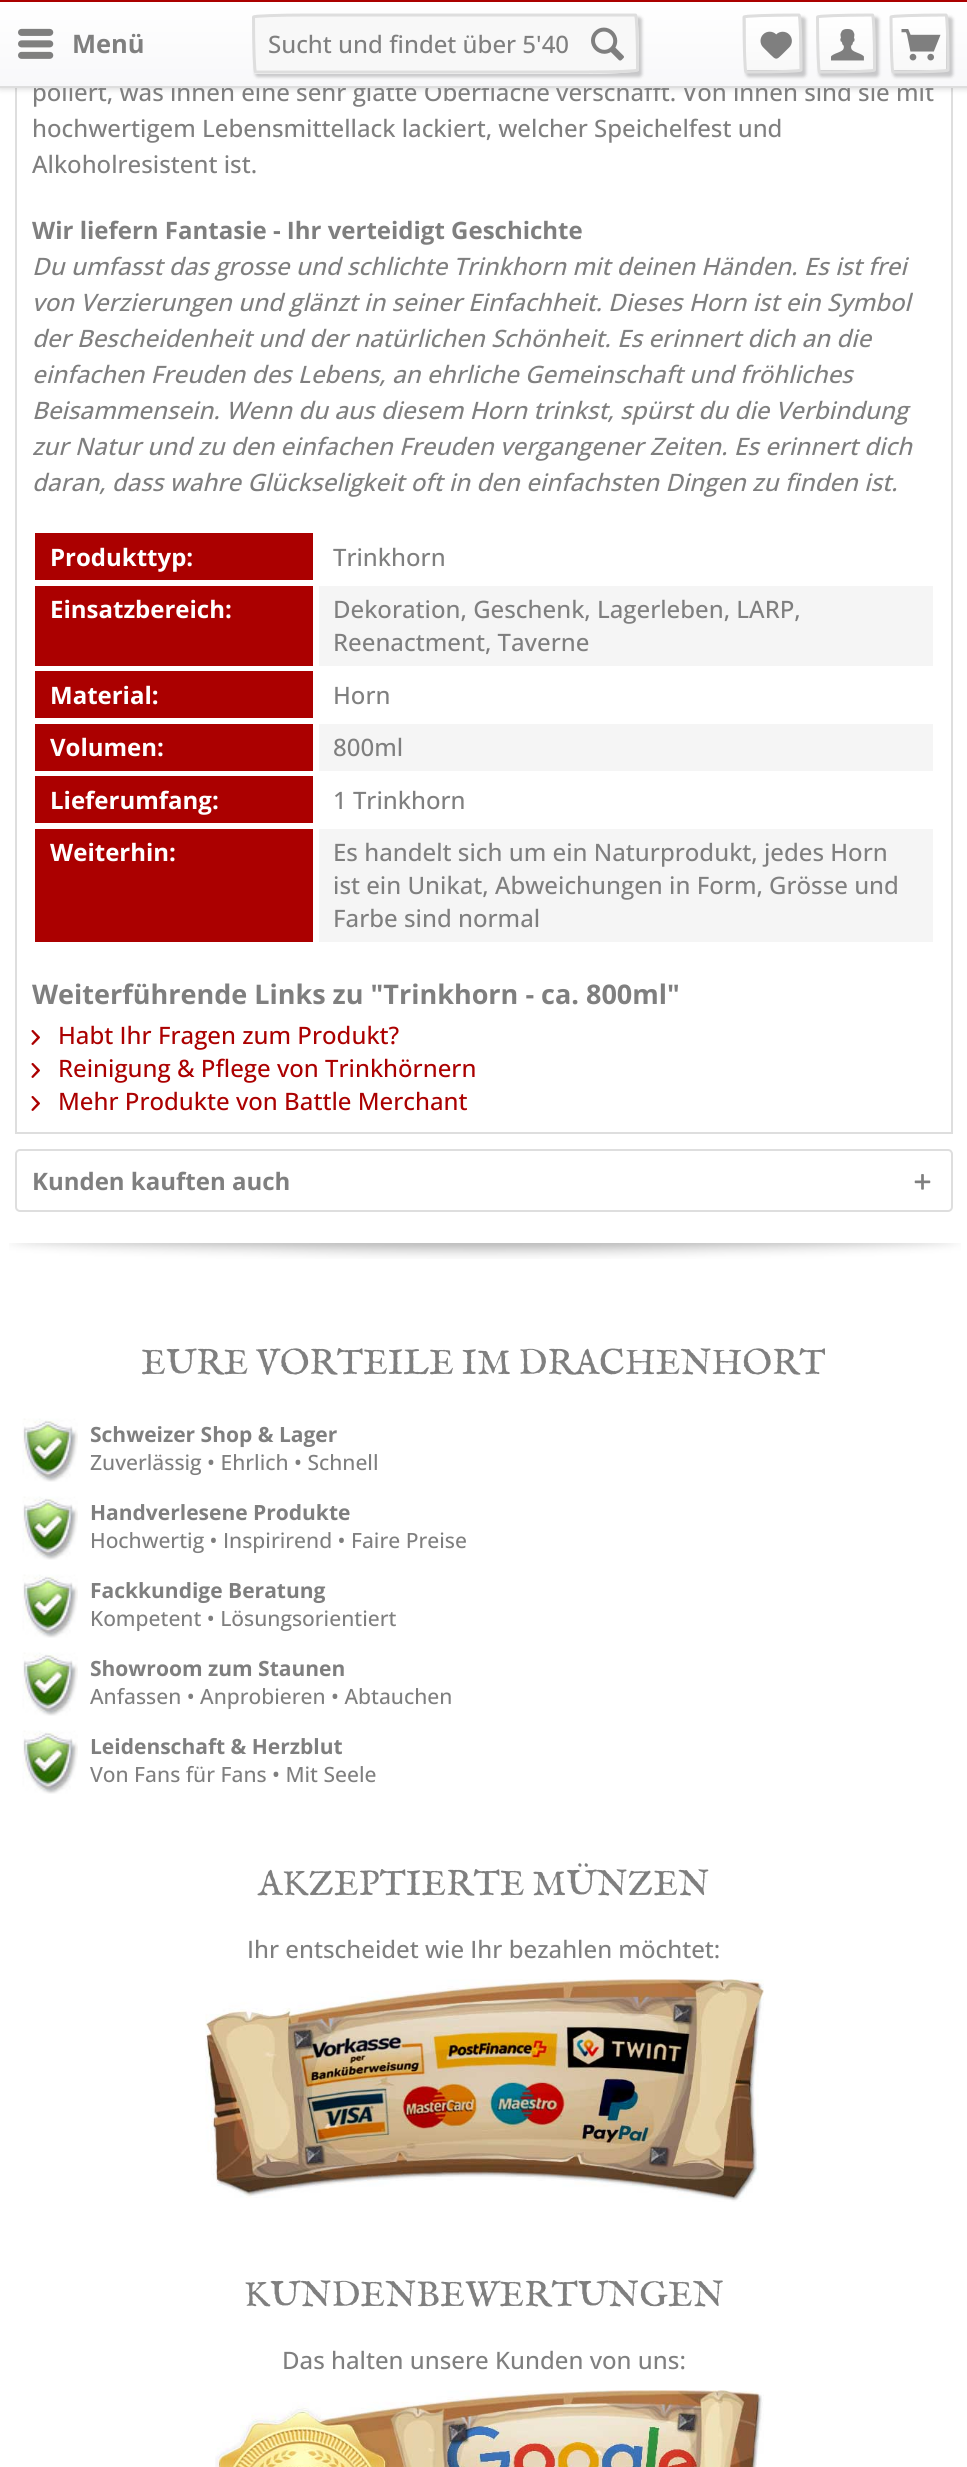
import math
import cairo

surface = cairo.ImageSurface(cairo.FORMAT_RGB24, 967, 2467)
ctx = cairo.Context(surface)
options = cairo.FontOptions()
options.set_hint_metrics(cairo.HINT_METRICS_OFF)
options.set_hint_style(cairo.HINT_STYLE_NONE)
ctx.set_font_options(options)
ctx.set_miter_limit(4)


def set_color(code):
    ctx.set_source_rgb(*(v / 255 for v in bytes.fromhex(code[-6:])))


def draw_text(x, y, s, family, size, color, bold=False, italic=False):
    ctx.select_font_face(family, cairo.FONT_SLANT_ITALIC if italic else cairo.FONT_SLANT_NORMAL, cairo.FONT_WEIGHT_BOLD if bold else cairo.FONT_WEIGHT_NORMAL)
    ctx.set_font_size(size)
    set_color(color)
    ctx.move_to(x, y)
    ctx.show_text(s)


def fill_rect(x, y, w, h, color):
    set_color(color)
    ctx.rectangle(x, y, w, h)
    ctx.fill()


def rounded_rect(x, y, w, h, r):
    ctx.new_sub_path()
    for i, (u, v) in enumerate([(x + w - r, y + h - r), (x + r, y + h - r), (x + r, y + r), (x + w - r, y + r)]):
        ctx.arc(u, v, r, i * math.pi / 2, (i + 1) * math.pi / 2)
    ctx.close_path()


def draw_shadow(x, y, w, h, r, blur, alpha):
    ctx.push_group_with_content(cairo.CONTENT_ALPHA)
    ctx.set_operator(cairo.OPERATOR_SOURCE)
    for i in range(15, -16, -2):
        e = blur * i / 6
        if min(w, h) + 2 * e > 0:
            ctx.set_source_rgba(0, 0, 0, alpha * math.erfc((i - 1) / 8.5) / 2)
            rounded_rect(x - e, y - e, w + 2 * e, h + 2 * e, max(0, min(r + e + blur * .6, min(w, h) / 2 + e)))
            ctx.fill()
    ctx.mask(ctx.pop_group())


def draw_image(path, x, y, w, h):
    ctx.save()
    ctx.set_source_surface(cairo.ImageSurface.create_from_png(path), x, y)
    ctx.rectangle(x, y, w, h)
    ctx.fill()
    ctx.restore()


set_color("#ffffff")
ctx.paint()
ctx.rectangle(16, -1, 936, 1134)
set_color("#dedede")
ctx.stroke()
set_color("#000000")
draw_shadow(0, 2, 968, 87, 0, 3, 0.15)
draw_text(32, 101, "poliert, was ihnen eine sehr glatte Oberfläche verschafft. Von innen sind sie mit", "Open Sans Medium", 24, "#7f7f7f")
gradient = cairo.LinearGradient(484, 1.5, 484, 86)
gradient.add_color_stop_rgba(0, 1, 1, 1, 1)
gradient.add_color_stop_rgba(1, 0.973, 0.973, 0.98, 1)
ctx.set_source(gradient)
ctx.rectangle(0, 2, 967, 84)
ctx.fill()
fill_rect(0, 0, 967, 2, "#ab0000")
fill_rect(0, 86, 967, 2, "#dedede")
draw_image("assets/img1.png", 18, 28, 36, 31)
draw_text(72, 53, "Menü", "Open Sans", 25.5, "#7f7f7f", bold=True)
set_color("#000000")
draw_shadow(255, 17, 387, 60, 3, 1.5, 0.2)
set_color("#f8f8f8")
ctx.new_path()
ctx.move_to(309, 14)
ctx.line_to(636, 14)
ctx.curve_to(638, 14, 639, 36, 639, 63)
ctx.line_to(639, 70)
ctx.curve_to(639, 72, 617, 74, 589, 74)
ctx.line_to(255, 74)
ctx.curve_to(253, 74, 252, 48, 252, 17)
ctx.curve_to(252, 15, 277, 14, 309, 14)
ctx.close_path()
ctx.fill()
ctx.new_path()
ctx.move_to(308.5, 15)
ctx.line_to(635.5, 15)
ctx.curve_to(636.5, 15, 637.5, 36.5, 637.5, 63.5)
ctx.line_to(637.5, 70)
ctx.curve_to(637.5, 71, 616, 72, 589, 72)
ctx.line_to(255.5, 72)
ctx.curve_to(254.5, 72, 253.5, 47.5, 253.5, 17)
ctx.curve_to(253.5, 16, 278, 15, 308.5, 15)
ctx.close_path()
set_color("#dedede")
ctx.set_line_width(3)
ctx.stroke()
draw_text(268, 53, "Sucht und findet über 5'40", "Open Sans Medium", 24, "#7f7f7f")
draw_image("assets/img2.png", 591, 27, 33, 34)
set_color("#000000")
draw_shadow(746, 17, 60, 60, 3, 1.5, 0.2)
gradient = cairo.LinearGradient(773, 16, 773, 71)
gradient.add_color_stop_rgba(0, 1, 1, 1, 1)
gradient.add_color_stop_rgba(1, 0.973, 0.973, 0.973, 1)
ctx.set_source(gradient)
ctx.new_path()
ctx.move_to(799, 16)
ctx.line_to(800, 70)
ctx.line_to(746, 70)
ctx.line_to(746, 17)
ctx.close_path()
ctx.fill()
ctx.new_path()
ctx.move_to(799, 15)
ctx.curve_to(800, 15, 801, 36.5, 801, 63.5)
ctx.line_to(801, 70)
ctx.curve_to(801, 71, 779.5, 72, 752.5, 72)
ctx.line_to(746, 72)
ctx.curve_to(745, 72, 744, 47.5, 744, 17)
ctx.curve_to(744, 16, 768.5, 15, 799, 15)
ctx.close_path()
set_color("#dedede")
ctx.stroke()
draw_image("assets/img3.png", 760, 31, 32, 28)
set_color("#000000")
draw_shadow(819, 17, 60, 60, 3, 1.5, 0.2)
gradient = cairo.LinearGradient(846, 16, 846, 71)
gradient.add_color_stop_rgba(0, 1, 1, 1, 1)
gradient.add_color_stop_rgba(1, 0.973, 0.973, 0.973, 1)
ctx.set_source(gradient)
ctx.new_path()
ctx.move_to(873, 16)
ctx.line_to(873, 70)
ctx.line_to(819, 70)
ctx.line_to(819, 17)
ctx.close_path()
ctx.fill()
ctx.new_path()
ctx.move_to(872.5, 15)
ctx.curve_to(873.5, 15, 874.5, 36.5, 874.5, 63.5)
ctx.line_to(874.5, 70)
ctx.curve_to(874.5, 71, 853, 72, 826, 72)
ctx.line_to(819.5, 72)
ctx.curve_to(818.5, 72, 817.5, 47.5, 817.5, 17)
ctx.curve_to(817.5, 16, 842, 15, 872.5, 15)
ctx.close_path()
set_color("#dedede")
ctx.stroke()
draw_image("assets/img4.png", 831, 29, 33, 32)
set_color("#000000")
draw_shadow(893, 17, 60, 60, 3, 1.5, 0.2)
gradient = cairo.LinearGradient(920, 16, 920, 71)
gradient.add_color_stop_rgba(0, 1, 1, 1, 1)
gradient.add_color_stop_rgba(1, 0.973, 0.973, 0.973, 1)
ctx.set_source(gradient)
ctx.new_path()
ctx.move_to(946, 16)
ctx.line_to(946, 70)
ctx.line_to(893, 70)
ctx.line_to(892, 17)
ctx.close_path()
ctx.fill()
ctx.new_path()
ctx.move_to(946, 15)
ctx.curve_to(947, 15, 948, 36.5, 948, 63.5)
ctx.line_to(948, 70)
ctx.curve_to(948, 71, 926.5, 72, 899.5, 72)
ctx.line_to(893, 72)
ctx.curve_to(892, 72, 891, 47.5, 891, 17)
ctx.curve_to(891, 16, 915.5, 15, 946, 15)
ctx.close_path()
set_color("#dedede")
ctx.stroke()
draw_image("assets/img5.png", 901, 29, 40, 32)
draw_text(32, 137, "hochwertigem Lebensmittellack lackiert, welcher Speichelfest und", "Open Sans Medium", 24, "#7f7f7f")
draw_text(32, 173, "Alkoholresistent ist.", "Open Sans Medium", 24, "#7f7f7f")
draw_text(32, 239, "Wir liefern Fantasie - Ihr verteidigt Geschichte", "Open Sans", 24, "#7f7f7f", bold=True)
draw_text(32, 275, "Du umfasst das grosse und schlichte Trinkhorn mit deinen Händen. Es ist frei", "Open Sans Medium", 24, "#7f7f7f", italic=True)
draw_text(32, 311, "von Verzierungen und glänzt in seiner Einfachheit. Dieses Horn ist ein Symbol", "Open Sans Medium", 24, "#7f7f7f", italic=True)
draw_text(32, 347, "der Bescheidenheit und der natürlichen Schönheit. Es erinnert dich an die", "Open Sans Medium", 24, "#7f7f7f", italic=True)
draw_text(32, 383, "einfachen Freuden des Lebens, an ehrliche Gemeinschaft und fröhliches", "Open Sans Medium", 24, "#7f7f7f", italic=True)
draw_text(32, 419, "Beisammensein. Wenn du aus diesem Horn trinkst, spürst du die Verbindung", "Open Sans Medium", 24, "#7f7f7f", italic=True)
draw_text(32, 455, "zur Natur und zu den einfachen Freuden vergangener Zeiten. Es erinnert dich", "Open Sans Medium", 24, "#7f7f7f", italic=True)
draw_text(32, 491, "daran, dass wahre Glückseligkeit oft in den einfachsten Dingen zu finden ist.", "Open Sans Medium", 24, "#7f7f7f", italic=True)
fill_rect(35, 533, 278, 47, "#ab0000")
draw_text(50, 566, "Produkttyp:", "Open Sans", 24, "#ffffff", bold=True)
draw_text(333, 566, "Trinkhorn", "Open Sans Medium", 24, "#7f7f7f")
fill_rect(35, 586, 278, 80, "#ab0000")
draw_text(50, 618, "Einsatzbereich:", "Open Sans", 24, "#ffffff", bold=True)
fill_rect(319, 586, 614, 80, "#f5f5f5")
draw_text(333, 618, "Dekoration, Geschenk, Lagerleben, LARP,", "Open Sans Medium", 24, "#7f7f7f")
draw_text(333, 651, "Reenactment, Taverne", "Open Sans Medium", 24, "#7f7f7f")
fill_rect(35, 671, 278, 47, "#ab0000")
draw_text(50, 704, "Material:", "Open Sans", 24, "#ffffff", bold=True)
draw_text(333, 704, "Horn", "Open Sans Medium", 24, "#7f7f7f")
fill_rect(35, 724, 278, 47, "#ab0000")
draw_text(50, 756, "Volumen:", "Open Sans", 24, "#ffffff", bold=True)
fill_rect(319, 724, 614, 47, "#f5f5f5")
draw_text(333, 756, "800ml", "Open Sans Medium", 24, "#7f7f7f")
fill_rect(35, 776, 278, 47, "#ab0000")
draw_text(50, 809, "Lieferumfang:", "Open Sans", 24, "#ffffff", bold=True)
draw_text(333, 809, "1 Trinkhorn", "Open Sans Medium", 24, "#7f7f7f")
fill_rect(35, 829, 278, 113, "#ab0000")
draw_text(50, 861, "Weiterhin:", "Open Sans", 24, "#ffffff", bold=True)
fill_rect(319, 829, 614, 113, "#f5f5f5")
draw_text(333, 861, "Es handelt sich um ein Naturprodukt, jedes Horn", "Open Sans Medium", 24, "#7f7f7f")
draw_text(333, 894, "ist ein Unikat, Abweichungen in Form, Grösse und", "Open Sans Medium", 24, "#7f7f7f")
draw_text(333, 927, "Farbe sind normal", "Open Sans Medium", 24, "#7f7f7f")
draw_text(32, 1004, "Weiterführende Links zu \"Trinkhorn - ca. 800ml\"", "Open Sans", 27, "#7f7f7f", bold=True)
draw_image("assets/img6.png", 31, 1030, 9, 15)
draw_text(58, 1044, "Habt Ihr Fragen zum Produkt?", "Open Sans Medium", 24, "#ab0000")
draw_image("assets/img6.png", 31, 1063, 9, 15)
draw_text(58, 1077, "Reinigung & Pflege von Trinkhörnern", "Open Sans Medium", 24, "#ab0000")
draw_image("assets/img6.png", 31, 1096, 9, 15)
draw_text(58, 1110, "Mehr Produkte von Battle Merchant", "Open Sans Medium", 24, "#ab0000")
rounded_rect(16, 1150, 936, 61, 4)
set_color("#dedede")
ctx.set_line_width(2)
ctx.stroke()
draw_text(32, 1190, "Kunden kauften auch", "Open Sans", 24, "#7f7f7f", bold=True)
draw_image("assets/img7.png", 914, 1174, 17, 16)
draw_image("assets/img8.png", 9, 1243, 952, 16)
draw_text(141, 1374, "EURE VORTEILE IM DRACHENHORT", "IM FELL English SC", 36, "#7f7f7f")
draw_image("assets/img9.png", 22, 1418, 56, 64)
draw_text(90, 1442, "Schweizer Shop & Lager", "Open Sans", 21, "#7f7f7f", bold=True)
draw_text(90, 1470, "Zuverlässig • Ehrlich • Schnell", "Open Sans Medium", 21, "#7f7f7f")
draw_image("assets/img9.png", 22, 1496, 56, 64)
draw_text(90, 1520, "Handverlesene Produkte", "Open Sans", 21, "#7f7f7f", bold=True)
draw_text(90, 1548, "Hochwertig • Inspirirend • Faire Preise", "Open Sans Medium", 21, "#7f7f7f")
draw_image("assets/img9.png", 22, 1574, 56, 64)
draw_text(90, 1598, "Fackkundige Beratung", "Open Sans", 21, "#7f7f7f", bold=True)
draw_text(90, 1626, "Kompetent • Lösungsorientiert", "Open Sans Medium", 21, "#7f7f7f")
draw_image("assets/img9.png", 22, 1652, 56, 64)
draw_text(90, 1676, "Showroom zum Staunen", "Open Sans", 21, "#7f7f7f", bold=True)
draw_text(90, 1704, "Anfassen • Anprobieren • Abtauchen", "Open Sans Medium", 21, "#7f7f7f")
draw_image("assets/img9.png", 22, 1730, 56, 64)
draw_text(90, 1754, "Leidenschaft & Herzblut", "Open Sans", 21, "#7f7f7f", bold=True)
draw_text(90, 1782, "Von Fans für Fans • Mit Seele", "Open Sans Medium", 21, "#7f7f7f")
draw_text(258, 1895, "AKZEPTIERTE MÜNZEN", "IM FELL English SC", 36, "#7f7f7f")
draw_text(247, 1958, "Ihr entscheidet wie Ihr bezahlen möchtet:", "Open Sans Medium", 24, "#7f7f7f")
draw_image("assets/img10.png", 205, 1979, 559, 223)
draw_text(244, 2306, "KUNDENBEWERTUNGEN", "IM FELL English SC", 36, "#7f7f7f")
draw_text(282, 2369, "Das halten unsere Kunden von uns:", "Open Sans Medium", 24, "#7f7f7f")
draw_image("assets/img11.png", 215, 2390, 549, 77)
surface.write_to_png("output.png")
